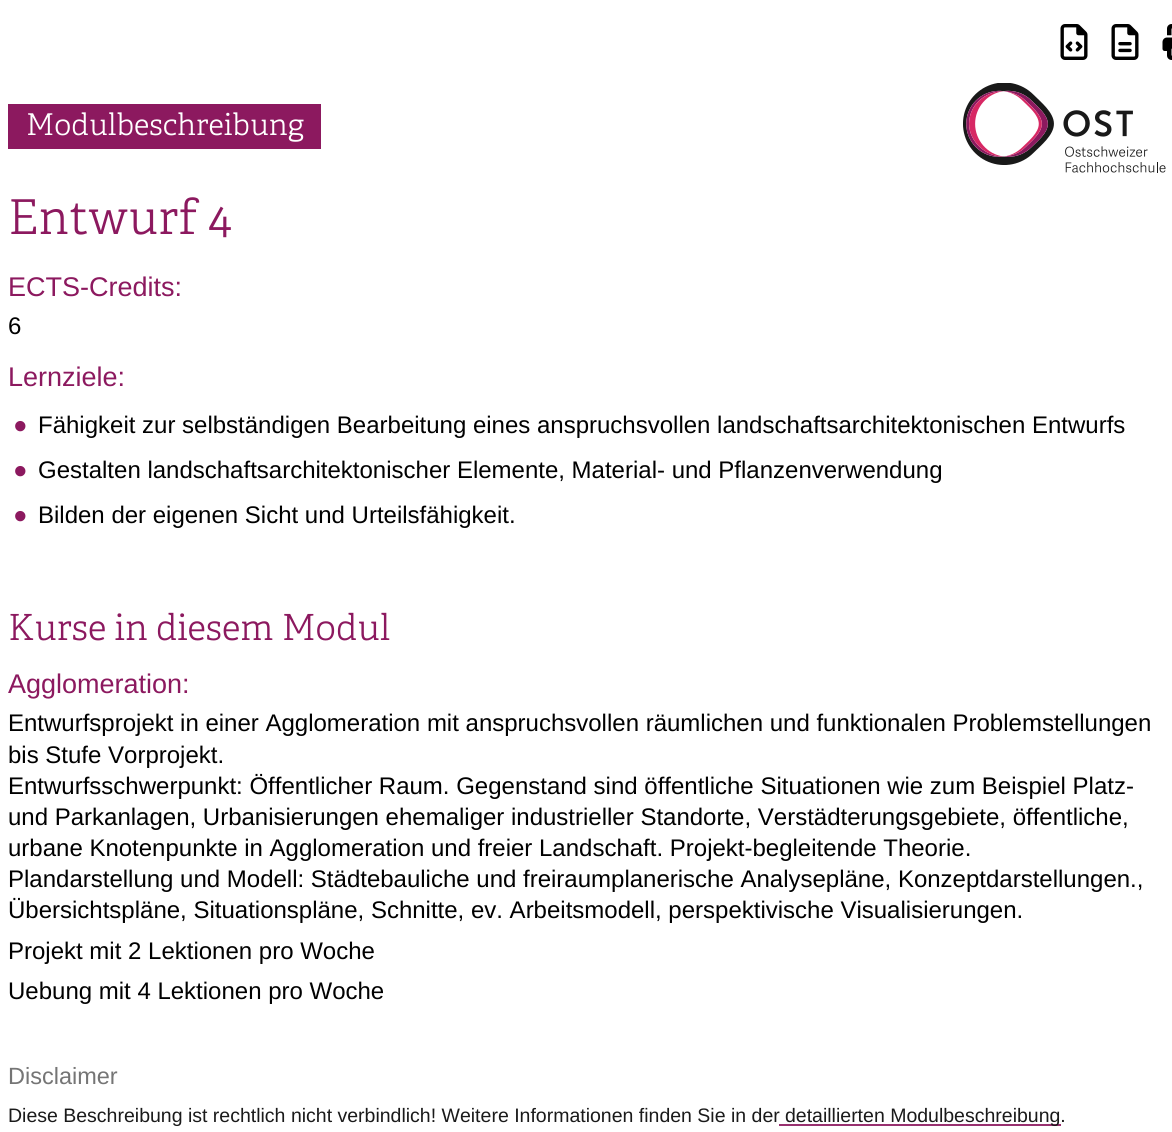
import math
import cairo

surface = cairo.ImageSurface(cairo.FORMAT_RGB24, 1172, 1132)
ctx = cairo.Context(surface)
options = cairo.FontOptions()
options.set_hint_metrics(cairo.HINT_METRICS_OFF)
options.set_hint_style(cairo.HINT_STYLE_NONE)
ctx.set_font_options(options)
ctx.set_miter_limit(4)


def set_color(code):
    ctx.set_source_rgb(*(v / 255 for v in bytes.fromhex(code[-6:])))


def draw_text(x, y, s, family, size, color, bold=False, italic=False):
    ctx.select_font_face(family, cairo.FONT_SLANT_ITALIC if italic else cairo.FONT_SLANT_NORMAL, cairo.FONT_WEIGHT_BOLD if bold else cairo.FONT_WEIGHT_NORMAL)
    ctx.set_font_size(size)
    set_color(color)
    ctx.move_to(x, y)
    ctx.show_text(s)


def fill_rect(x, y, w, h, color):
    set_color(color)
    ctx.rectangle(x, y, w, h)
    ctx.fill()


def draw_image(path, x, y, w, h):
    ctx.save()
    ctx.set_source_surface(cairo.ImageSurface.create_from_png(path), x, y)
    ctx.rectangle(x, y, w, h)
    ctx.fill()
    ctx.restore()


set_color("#ffffff")
ctx.paint()
draw_image("assets/img1.png", 1060, 24, 28, 36)
draw_image("assets/img2.png", 1111, 24, 28, 36)
draw_image("assets/img3.png", 1162, 24, 10, 36)
fill_rect(8, 104, 313, 45, "#8c195f")
draw_text(26, 135, "Modulbeschreibung", "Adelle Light", 30, "#ffffff")
draw_image("assets/img4.png", 963, 83, 203, 90)
draw_text(8, 234, "Entwurf 4", "Adelle Light", 48, "#8c195f")
draw_text(8, 296, "ECTS-Credits:", "Liberation Sans", 27, "#8c195f")
draw_text(8, 334, "6", "Liberation Sans", 24, "#000000")
draw_text(8, 386, "Lernziele:", "Liberation Sans", 27, "#8c195f")
draw_text(14, 438, "•", "Liberation Sans", 36, "#8c195f", bold=True)
draw_text(38, 433, "Fähigkeit zur selbständigen Bearbeitung eines anspruchsvollen landschaftsarchitektonischen Entwurfs", "Liberation Sans", 24, "#000000")
draw_text(14, 483, "•", "Liberation Sans", 36, "#8c195f", bold=True)
draw_text(38, 478, "Gestalten landschaftsarchitektonischer Elemente, Material- und Pflanzenverwendung", "Liberation Sans", 24, "#000000")
draw_text(14, 528, "•", "Liberation Sans", 36, "#8c195f", bold=True)
draw_text(38, 523, "Bilden der eigenen Sicht und Urteilsfähigkeit.", "Liberation Sans", 24, "#000000")
draw_text(8, 640, "Kurse in diesem Modul", "Adelle Light", 36, "#8c195f")
draw_text(8, 693, "Agglomeration:", "Liberation Sans", 27, "#8c195f")
draw_text(8, 731, "Entwurfsprojekt in einer Agglomeration mit anspruchsvollen räumlichen und funktionalen Problemstellungen", "Liberation Sans", 24, "#000000")
draw_text(8, 763, "bis Stufe Vorprojekt.", "Liberation Sans", 24, "#000000")
draw_text(8, 794, "Entwurfsschwerpunkt: Öffentlicher Raum. Gegenstand sind öffentliche Situationen wie zum Beispiel Platz-", "Liberation Sans", 24, "#000000")
draw_text(8, 825, "und Parkanlagen, Urbanisierungen ehemaliger industrieller Standorte, Verstädterungsgebiete, öffentliche,", "Liberation Sans", 24, "#000000")
draw_text(8, 856, "urbane Knotenpunkte in Agglomeration und freier Landschaft. Projekt-begleitende Theorie.", "Liberation Sans", 24, "#000000")
draw_text(8, 887, "Plandarstellung und Modell: Städtebauliche und freiraumplanerische Analysepläne, Konzeptdarstellungen.,", "Liberation Sans", 24, "#000000")
draw_text(8, 918, "Übersichtspläne, Situationspläne, Schnitte, ev. Arbeitsmodell, perspektivische Visualisierungen.", "Liberation Sans", 24, "#000000")
draw_text(8, 959, "Projekt mit 2 Lektionen pro Woche", "Liberation Sans", 24, "#000000")
draw_text(8, 999, "Uebung mit 4 Lektionen pro Woche", "Liberation Sans", 24, "#000000")
draw_text(8, 1084, "Disclaimer", "Liberation Sans", 23.5, "#757575")
draw_text(8, 1122, "Diese Beschreibung ist rechtlich nicht verbindlich! Weitere Informationen finden Sie in der", "Liberation Sans", 19.5, "#1a1a1a")
fill_rect(779, 1124, 282, 2, "#98306f")
draw_text(785, 1122, "detaillierten Modulbeschreibung.", "Liberation Sans", 19.5, "#1a1a1a")
surface.write_to_png("output.png")
